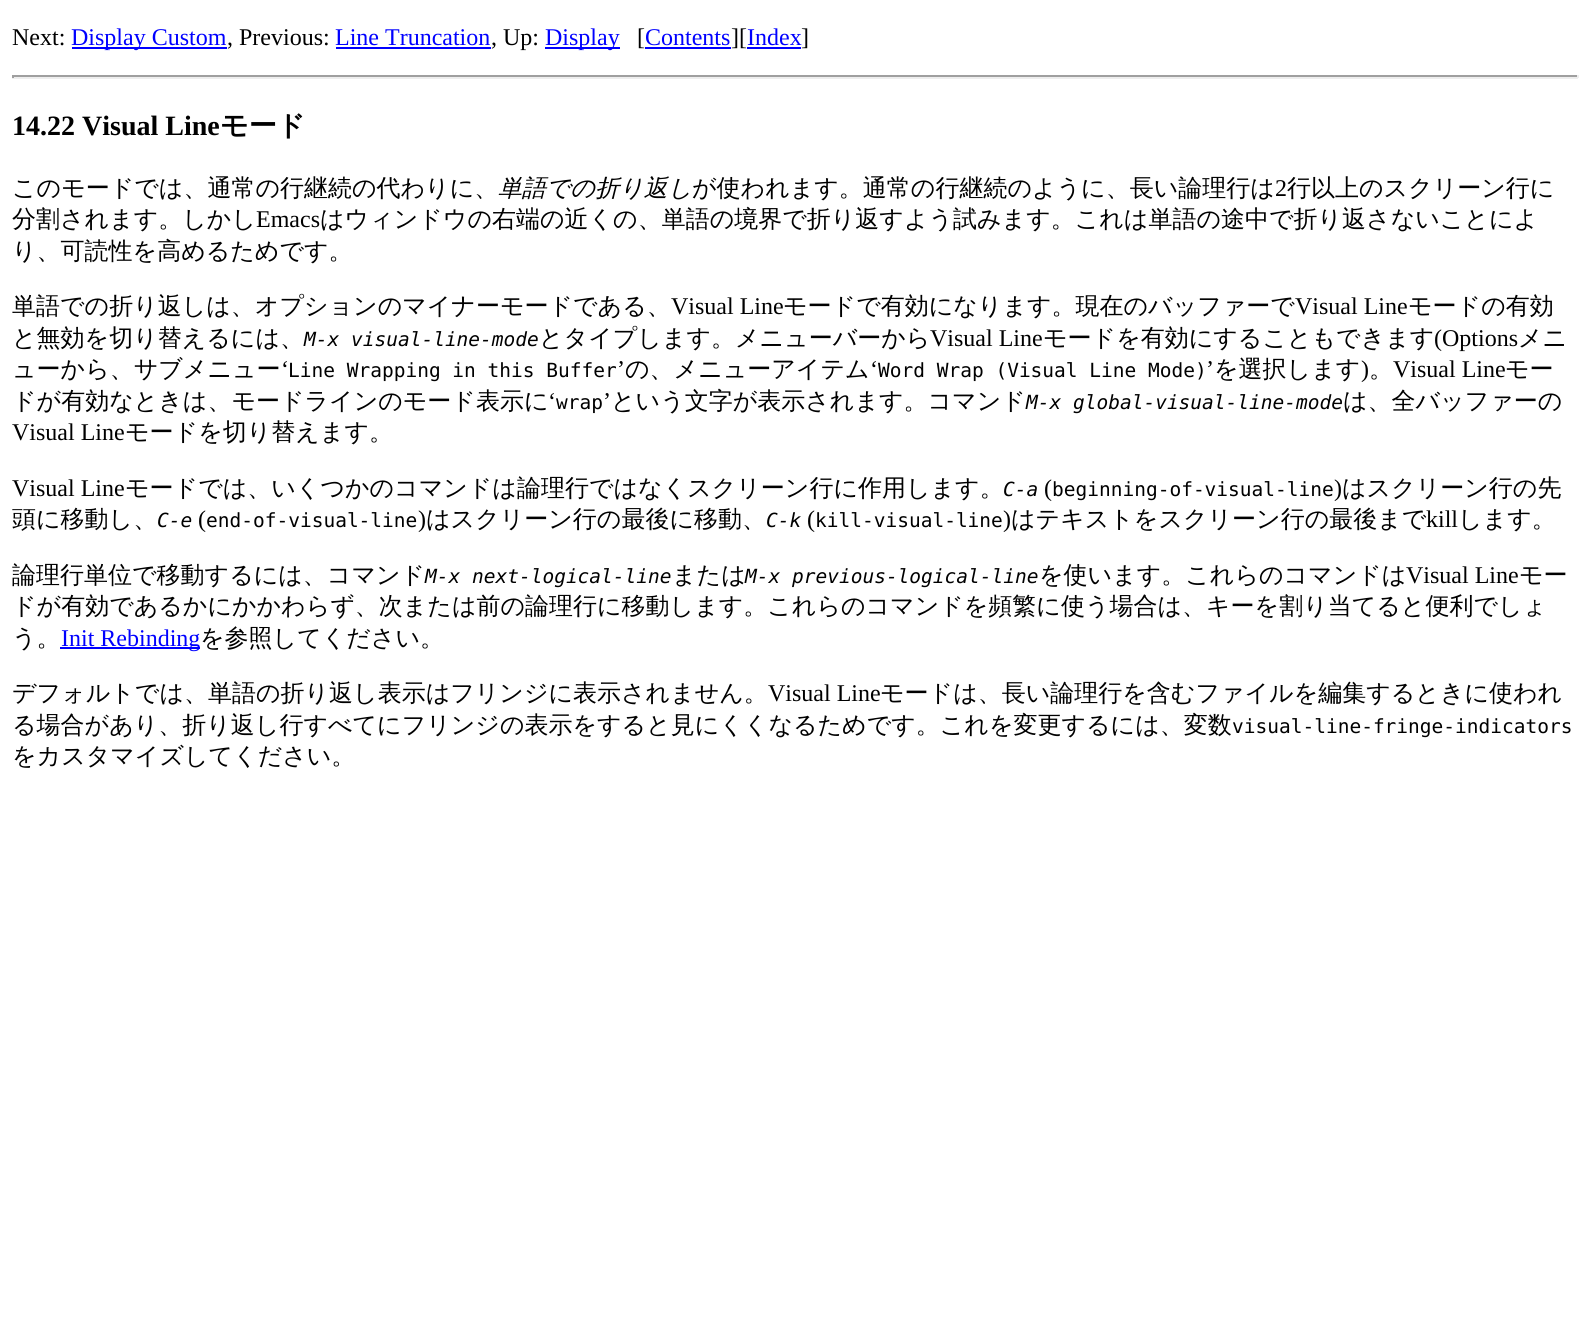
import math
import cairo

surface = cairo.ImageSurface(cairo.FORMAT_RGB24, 1590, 1330)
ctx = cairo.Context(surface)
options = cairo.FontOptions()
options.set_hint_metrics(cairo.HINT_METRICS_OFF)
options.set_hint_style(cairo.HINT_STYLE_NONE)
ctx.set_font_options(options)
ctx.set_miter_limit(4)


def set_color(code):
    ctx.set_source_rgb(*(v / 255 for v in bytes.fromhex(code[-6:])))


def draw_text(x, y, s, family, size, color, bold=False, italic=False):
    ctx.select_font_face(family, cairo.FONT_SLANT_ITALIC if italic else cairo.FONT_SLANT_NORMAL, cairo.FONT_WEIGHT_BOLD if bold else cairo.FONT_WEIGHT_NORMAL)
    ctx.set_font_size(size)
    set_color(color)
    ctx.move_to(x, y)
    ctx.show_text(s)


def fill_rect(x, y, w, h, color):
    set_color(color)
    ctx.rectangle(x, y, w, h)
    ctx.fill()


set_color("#ffffff")
ctx.paint()
draw_text(12, 45, "Next:", "Liberation Serif", 24, "#000000")
fill_rect(72, 47, 155, 2, "#0000ff")
draw_text(71, 45, "Display Custom", "Liberation Serif", 24, "#0000ff")
draw_text(227, 45, ", Previous:", "Liberation Serif", 24, "#000000")
draw_text(335, 45, "Line Truncation", "Liberation Serif", 24, "#0000ff")
fill_rect(336, 47, 155, 2, "#0000ff")
draw_text(491, 45, ", Up:", "Liberation Serif", 24, "#000000")
fill_rect(545, 47, 75, 2, "#0000ff")
draw_text(545, 45, "Display", "Liberation Serif", 24, "#0000ff")
draw_text(637, 45, "[", "Liberation Serif", 24, "#000000")
draw_text(645, 45, "Contents", "Liberation Serif", 24, "#0000ff")
fill_rect(645, 47, 86, 2, "#0000ff")
draw_text(731, 45, "][", "Liberation Serif", 24, "#000000")
draw_text(747, 45, "Index", "Liberation Serif", 24, "#0000ff")
fill_rect(747, 47, 54, 2, "#0000ff")
draw_text(801, 45, "]", "Liberation Serif", 24, "#000000")
fill_rect(12, 75, 1566, 2, "#9f9f9f")
fill_rect(1577, 75, 2, 3, "#eeeeee")
fill_rect(12, 77, 1566, 2, "#eeeeee")
fill_rect(12, 75, 2, 3, "#9f9f9f")
draw_text(12, 135, "14.22 Visual Line", "Liberation Serif", 28, "#000000", bold=True)
draw_text(220, 135, "モード", "WenQuanYi Zen Hei", 28, "#000000", bold=True)
draw_text(12, 196, "このモードでは、通常の行継続の代わりに、", "WenQuanYi Zen Hei Medium", 24, "#000000")
draw_text(498, 196, "単語での折り返し", "WenQuanYi Zen Hei Medium", 24, "#000000", italic=True)
draw_text(692, 196, "が使われます。通常の行継続のように、長い論理行は", "WenQuanYi Zen Hei Medium", 24, "#000000")
draw_text(1275, 196, "2", "Liberation Serif", 24, "#000000")
draw_text(1287, 196, "行以上のスクリーン行に", "WenQuanYi Zen Hei Medium", 24, "#000000")
draw_text(12, 227, "分割されます。しかし", "WenQuanYi Zen Hei Medium", 24, "#000000")
draw_text(256, 227, "Emacs", "Liberation Serif", 24, "#000000")
draw_text(320, 227, "はウィンドウの右端の近くの、単語の境界で折り返すよう試みます。これは単語の途中で折り返さないことによ", "WenQuanYi Zen Hei Medium", 24, "#000000")
draw_text(12, 259, "り、可読性を高めるためです。", "WenQuanYi Zen Hei Medium", 24, "#000000")
draw_text(12, 314, "単語での折り返しは、オプションのマイナーモードである、", "WenQuanYi Zen Hei Medium", 24, "#000000")
draw_text(671, 314, "Visual Line", "Liberation Serif", 24, "#000000")
draw_text(783, 314, "モードで有効になります。現在のバッファーで", "WenQuanYi Zen Hei Medium", 24, "#000000")
draw_text(1295, 314, "Visual Line", "Liberation Serif", 24, "#000000")
draw_text(1408, 314, "モードの有効", "WenQuanYi Zen Hei Medium", 24, "#000000")
draw_text(12, 346, "と無効を切り替えるには、", "WenQuanYi Zen Hei Medium", 24, "#000000")
draw_text(304, 346, "M-x visual-line-mode", "DejaVu Sans Mono", 19.5, "#000000", italic=True)
draw_text(539, 346, "とタイプします。メニューバーから", "WenQuanYi Zen Hei Medium", 24, "#000000")
draw_text(930, 346, "Visual Line", "Liberation Serif", 24, "#000000")
draw_text(1043, 346, "モードを有効にすることもできます", "WenQuanYi Zen Hei Medium", 24, "#000000")
draw_text(1434, 346, "(Options", "Liberation Serif", 24, "#000000")
draw_text(1518, 346, "メニ", "WenQuanYi Zen Hei Medium", 24, "#000000")
draw_text(12, 377, "ューから、サブメニュー", "WenQuanYi Zen Hei Medium", 24, "#000000")
draw_text(281, 377, "‘", "Liberation Serif", 24, "#000000")
draw_text(288, 377, "Line Wrapping in this Buffer", "DejaVu Sans Mono", 19.5, "#000000")
draw_text(617, 377, "’", "Liberation Serif", 24, "#000000")
draw_text(625, 377, "の、メニューアイテム", "WenQuanYi Zen Hei Medium", 24, "#000000")
draw_text(870, 377, "‘", "Liberation Serif", 24, "#000000")
draw_text(878, 377, "Word Wrap (Visual Line Mode)", "DejaVu Sans Mono", 19.5, "#000000")
draw_text(1206, 377, "’", "Liberation Serif", 24, "#000000")
draw_text(1214, 377, "を選択します", "WenQuanYi Zen Hei Medium", 24, "#000000")
draw_text(1361, 377, ")", "Liberation Serif", 24, "#000000")
draw_text(1369, 377, "。", "WenQuanYi Zen Hei Medium", 24, "#000000")
draw_text(1393, 377, "Visual Line", "Liberation Serif", 24, "#000000")
draw_text(1505, 377, "モー", "WenQuanYi Zen Hei Medium", 24, "#000000")
draw_text(12, 409, "ドが有効なときは、モードラインのモード表示に", "WenQuanYi Zen Hei Medium", 24, "#000000")
draw_text(548, 409, "‘", "Liberation Serif", 24, "#000000")
draw_text(556, 409, "wrap", "DejaVu Sans Mono", 19.5, "#000000")
draw_text(603, 409, "’", "Liberation Serif", 24, "#000000")
draw_text(611, 409, "という文字が表示されます。コマンド", "WenQuanYi Zen Hei Medium", 24, "#000000")
draw_text(1026, 409, "M-x global-visual-line-mode", "DejaVu Sans Mono", 19.5, "#000000", italic=True)
draw_text(1343, 409, "は、全バッファーの", "WenQuanYi Zen Hei Medium", 24, "#000000")
draw_text(12, 440, "Visual Line", "Liberation Serif", 24, "#000000")
draw_text(125, 440, "モードを切り替えます。", "WenQuanYi Zen Hei Medium", 24, "#000000")
draw_text(12, 496, "Visual Line", "Liberation Serif", 24, "#000000")
draw_text(125, 496, "モードでは、いくつかのコマンドは論理行ではなくスクリーン行に作用します。", "WenQuanYi Zen Hei Medium", 24, "#000000")
draw_text(1003, 496, "C-a", "DejaVu Sans Mono", 19.5, "#000000", italic=True)
draw_text(1044, 496, "(", "Liberation Serif", 24, "#000000")
draw_text(1052, 496, "beginning-of-visual-line", "DejaVu Sans Mono", 19.5, "#000000")
draw_text(1334, 496, ")", "Liberation Serif", 24, "#000000")
draw_text(1342, 496, "はスクリーン行の先", "WenQuanYi Zen Hei Medium", 24, "#000000")
draw_text(12, 527, "頭に移動し、", "WenQuanYi Zen Hei Medium", 24, "#000000")
draw_text(157, 527, "C-e", "DejaVu Sans Mono", 19.5, "#000000", italic=True)
draw_text(198, 527, "(", "Liberation Serif", 24, "#000000")
draw_text(206, 527, "end-of-visual-line", "DejaVu Sans Mono", 19.5, "#000000")
draw_text(418, 527, ")", "Liberation Serif", 24, "#000000")
draw_text(426, 527, "はスクリーン行の最後に移動、", "WenQuanYi Zen Hei Medium", 24, "#000000")
draw_text(766, 527, "C-k", "DejaVu Sans Mono", 19.5, "#000000", italic=True)
draw_text(807, 527, "(", "Liberation Serif", 24, "#000000")
draw_text(815, 527, "kill-visual-line", "DejaVu Sans Mono", 19.5, "#000000")
draw_text(1003, 527, ")", "Liberation Serif", 24, "#000000")
draw_text(1011, 527, "はテキストをスクリーン行の最後まで", "WenQuanYi Zen Hei Medium", 24, "#000000")
draw_text(1426, 527, "kill", "Liberation Serif", 24, "#000000")
draw_text(1458, 527, "します。", "WenQuanYi Zen Hei Medium", 24, "#000000")
draw_text(12, 583, "論理行単位で移動するには、コマンド", "WenQuanYi Zen Hei Medium", 24, "#000000")
draw_text(425, 583, "M-x next-logical-line", "DejaVu Sans Mono", 19.5, "#000000", italic=True)
draw_text(672, 583, "または", "WenQuanYi Zen Hei Medium", 24, "#000000")
draw_text(745, 583, "M-x previous-logical-line", "DejaVu Sans Mono", 19.5, "#000000", italic=True)
draw_text(1039, 583, "を使います。これらのコマンドは", "WenQuanYi Zen Hei Medium", 24, "#000000")
draw_text(1406, 583, "Visual Line", "Liberation Serif", 24, "#000000")
draw_text(1519, 583, "モー", "WenQuanYi Zen Hei Medium", 24, "#000000")
draw_text(12, 614, "ドが有効であるかにかかわらず、次または前の論理行に移動します。これらのコマンドを頻繁に使う場合は、キーを割り当てると便利でしょ", "WenQuanYi Zen Hei Medium", 24, "#000000")
draw_text(12, 646, "う。", "WenQuanYi Zen Hei Medium", 24, "#000000")
fill_rect(60, 647, 140, 2, "#0000ff")
draw_text(61, 646, "Init Rebinding", "Liberation Serif", 24, "#0000ff")
draw_text(200, 646, "を参照してください。", "WenQuanYi Zen Hei Medium", 24, "#000000")
draw_text(12, 701, "デフォルトでは、単語の折り返し表示はフリンジに表示されません。", "WenQuanYi Zen Hei Medium", 24, "#000000")
draw_text(768, 701, "Visual Line", "Liberation Serif", 24, "#000000")
draw_text(880, 701, "モードは、長い論理行を含むファイルを編集するときに使われ", "WenQuanYi Zen Hei Medium", 24, "#000000")
draw_text(12, 733, "る場合があり、折り返し行すべてにフリンジの表示をすると見にくくなるためです。これを変更するには、変数", "WenQuanYi Zen Hei Medium", 24, "#000000")
draw_text(1232, 733, "visual-line-fringe-indicators", "DejaVu Sans Mono", 19.5, "#000000")
draw_text(12, 764, "をカスタマイズしてください。", "WenQuanYi Zen Hei Medium", 24, "#000000")
surface.write_to_png("output.png")
